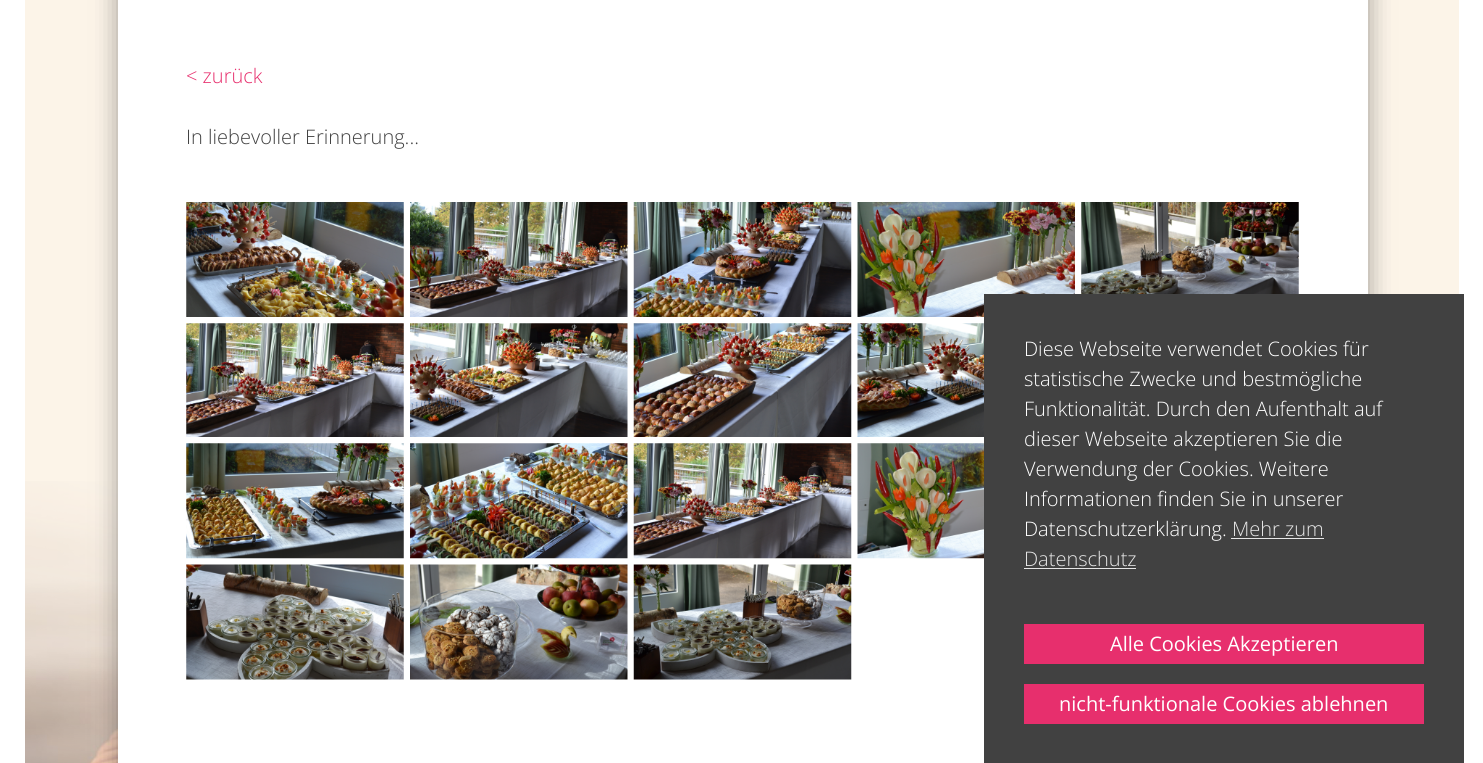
import math
import cairo

surface = cairo.ImageSurface(cairo.FORMAT_RGB24, 1483, 763)
ctx = cairo.Context(surface)
options = cairo.FontOptions()
options.set_hint_metrics(cairo.HINT_METRICS_OFF)
options.set_hint_style(cairo.HINT_STYLE_NONE)
ctx.set_font_options(options)
ctx.set_miter_limit(4)


def set_color(code):
    ctx.set_source_rgb(*(v / 255 for v in bytes.fromhex(code[-6:])))


def draw_text(x, y, s, family, size, color, bold=False, italic=False):
    ctx.select_font_face(family, cairo.FONT_SLANT_ITALIC if italic else cairo.FONT_SLANT_NORMAL, cairo.FONT_WEIGHT_BOLD if bold else cairo.FONT_WEIGHT_NORMAL)
    ctx.set_font_size(size)
    set_color(color)
    ctx.move_to(x, y)
    ctx.show_text(s)


def fill_rect(x, y, w, h, color):
    set_color(color)
    ctx.rectangle(x, y, w, h)
    ctx.fill()


def rounded_rect(x, y, w, h, r):
    ctx.new_sub_path()
    for i, (u, v) in enumerate([(x + w - r, y + h - r), (x + r, y + h - r), (x + r, y + r), (x + w - r, y + r)]):
        ctx.arc(u, v, r, i * math.pi / 2, (i + 1) * math.pi / 2)
    ctx.close_path()


def draw_shadow(x, y, w, h, r, blur, alpha):
    ctx.push_group_with_content(cairo.CONTENT_ALPHA)
    ctx.set_operator(cairo.OPERATOR_SOURCE)
    for i in range(15, -16, -2):
        e = blur * i / 6
        if min(w, h) + 2 * e > 0:
            ctx.set_source_rgba(0, 0, 0, alpha * math.erfc((i - 1) / 8.5) / 2)
            rounded_rect(x - e, y - e, w + 2 * e, h + 2 * e, max(0, min(r + e + blur * .6, min(w, h) / 2 + e)))
            ctx.fill()
    ctx.mask(ctx.pop_group())


def draw_image(path, x, y, w, h):
    ctx.save()
    ctx.set_source_surface(cairo.ImageSurface.create_from_png(path), x, y)
    ctx.rectangle(x, y, w, h)
    ctx.fill()
    ctx.restore()


set_color("#ffffff")
ctx.paint()
fill_rect(25, 0, 1434, 763, "#fcf4e8")
draw_image("assets/img1.png", 25, 481, 93, 282)
set_color("#414141")
draw_shadow(118, -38, 1250, 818, 0, 12.5, 0.5)
fill_rect(118, 0, 1250, 763, "#ffffff")
draw_text(186, 83, "< zurück", "Open Sans Light", 20, "#e72f6d")
draw_text(186, 144, "In liebevoller Erinnerung...", "Open Sans Light", 20, "#414141")
draw_image("assets/img2.png", 186, 202, 218, 115)
draw_image("assets/img3.png", 410, 202, 218, 115)
draw_image("assets/img4.png", 633, 202, 219, 115)
draw_image("assets/img5.png", 857, 202, 218, 115)
draw_image("assets/img6.png", 1081, 202, 218, 92)
draw_image("assets/img7.png", 186, 323, 218, 114)
draw_image("assets/img8.png", 410, 323, 218, 114)
draw_image("assets/img9.png", 633, 323, 219, 114)
draw_image("assets/img10.png", 857, 323, 127, 114)
draw_image("assets/img11.png", 186, 443, 218, 116)
draw_image("assets/img12.png", 410, 443, 218, 116)
draw_image("assets/img13.png", 633, 443, 219, 116)
draw_image("assets/img14.png", 857, 443, 127, 116)
draw_image("assets/img15.png", 186, 564, 218, 116)
draw_image("assets/img16.png", 410, 564, 218, 116)
draw_image("assets/img17.png", 633, 564, 219, 116)
fill_rect(984, 294, 480, 469, "#414141")
draw_text(1024, 356, "Diese Webseite verwendet Cookies für", "Open Sans Light", 20, "#ffffff")
draw_text(1024, 386, "statistische Zwecke und bestmögliche", "Open Sans Light", 20, "#ffffff")
draw_text(1024, 416, "Funktionalität. Durch den Aufenthalt auf", "Open Sans Light", 20, "#ffffff")
draw_text(1024, 446, "dieser Webseite akzeptieren Sie die", "Open Sans Light", 20, "#ffffff")
draw_text(1024, 476, "Verwendung der Cookies. Weitere", "Open Sans Light", 20, "#ffffff")
draw_text(1024, 506, "Informationen finden Sie in unserer", "Open Sans Light", 20, "#ffffff")
draw_text(1024, 536, "Datenschutzerklärung.", "Open Sans Light", 20, "#ffffff")
draw_text(1232, 536, "Mehr zum", "Open Sans Light", 20, "#e6e6e6")
fill_rect(1231, 538, 93, 1, "#e6e6e6")
draw_text(1024, 566, "Datenschutz", "Open Sans Light", 20, "#e6e6e6")
fill_rect(1024, 568, 112, 1, "#e6e6e6")
fill_rect(1024, 624, 400, 40, "#e72f6d")
draw_text(1110, 651, "Alle Cookies Akzeptieren", "Open Sans", 20, "#ffffff")
fill_rect(1024, 684, 400, 40, "#e72f6d")
draw_text(1059, 711, "nicht-funktionale Cookies ablehnen", "Open Sans", 20, "#ffffff")
surface.write_to_png("output.png")
